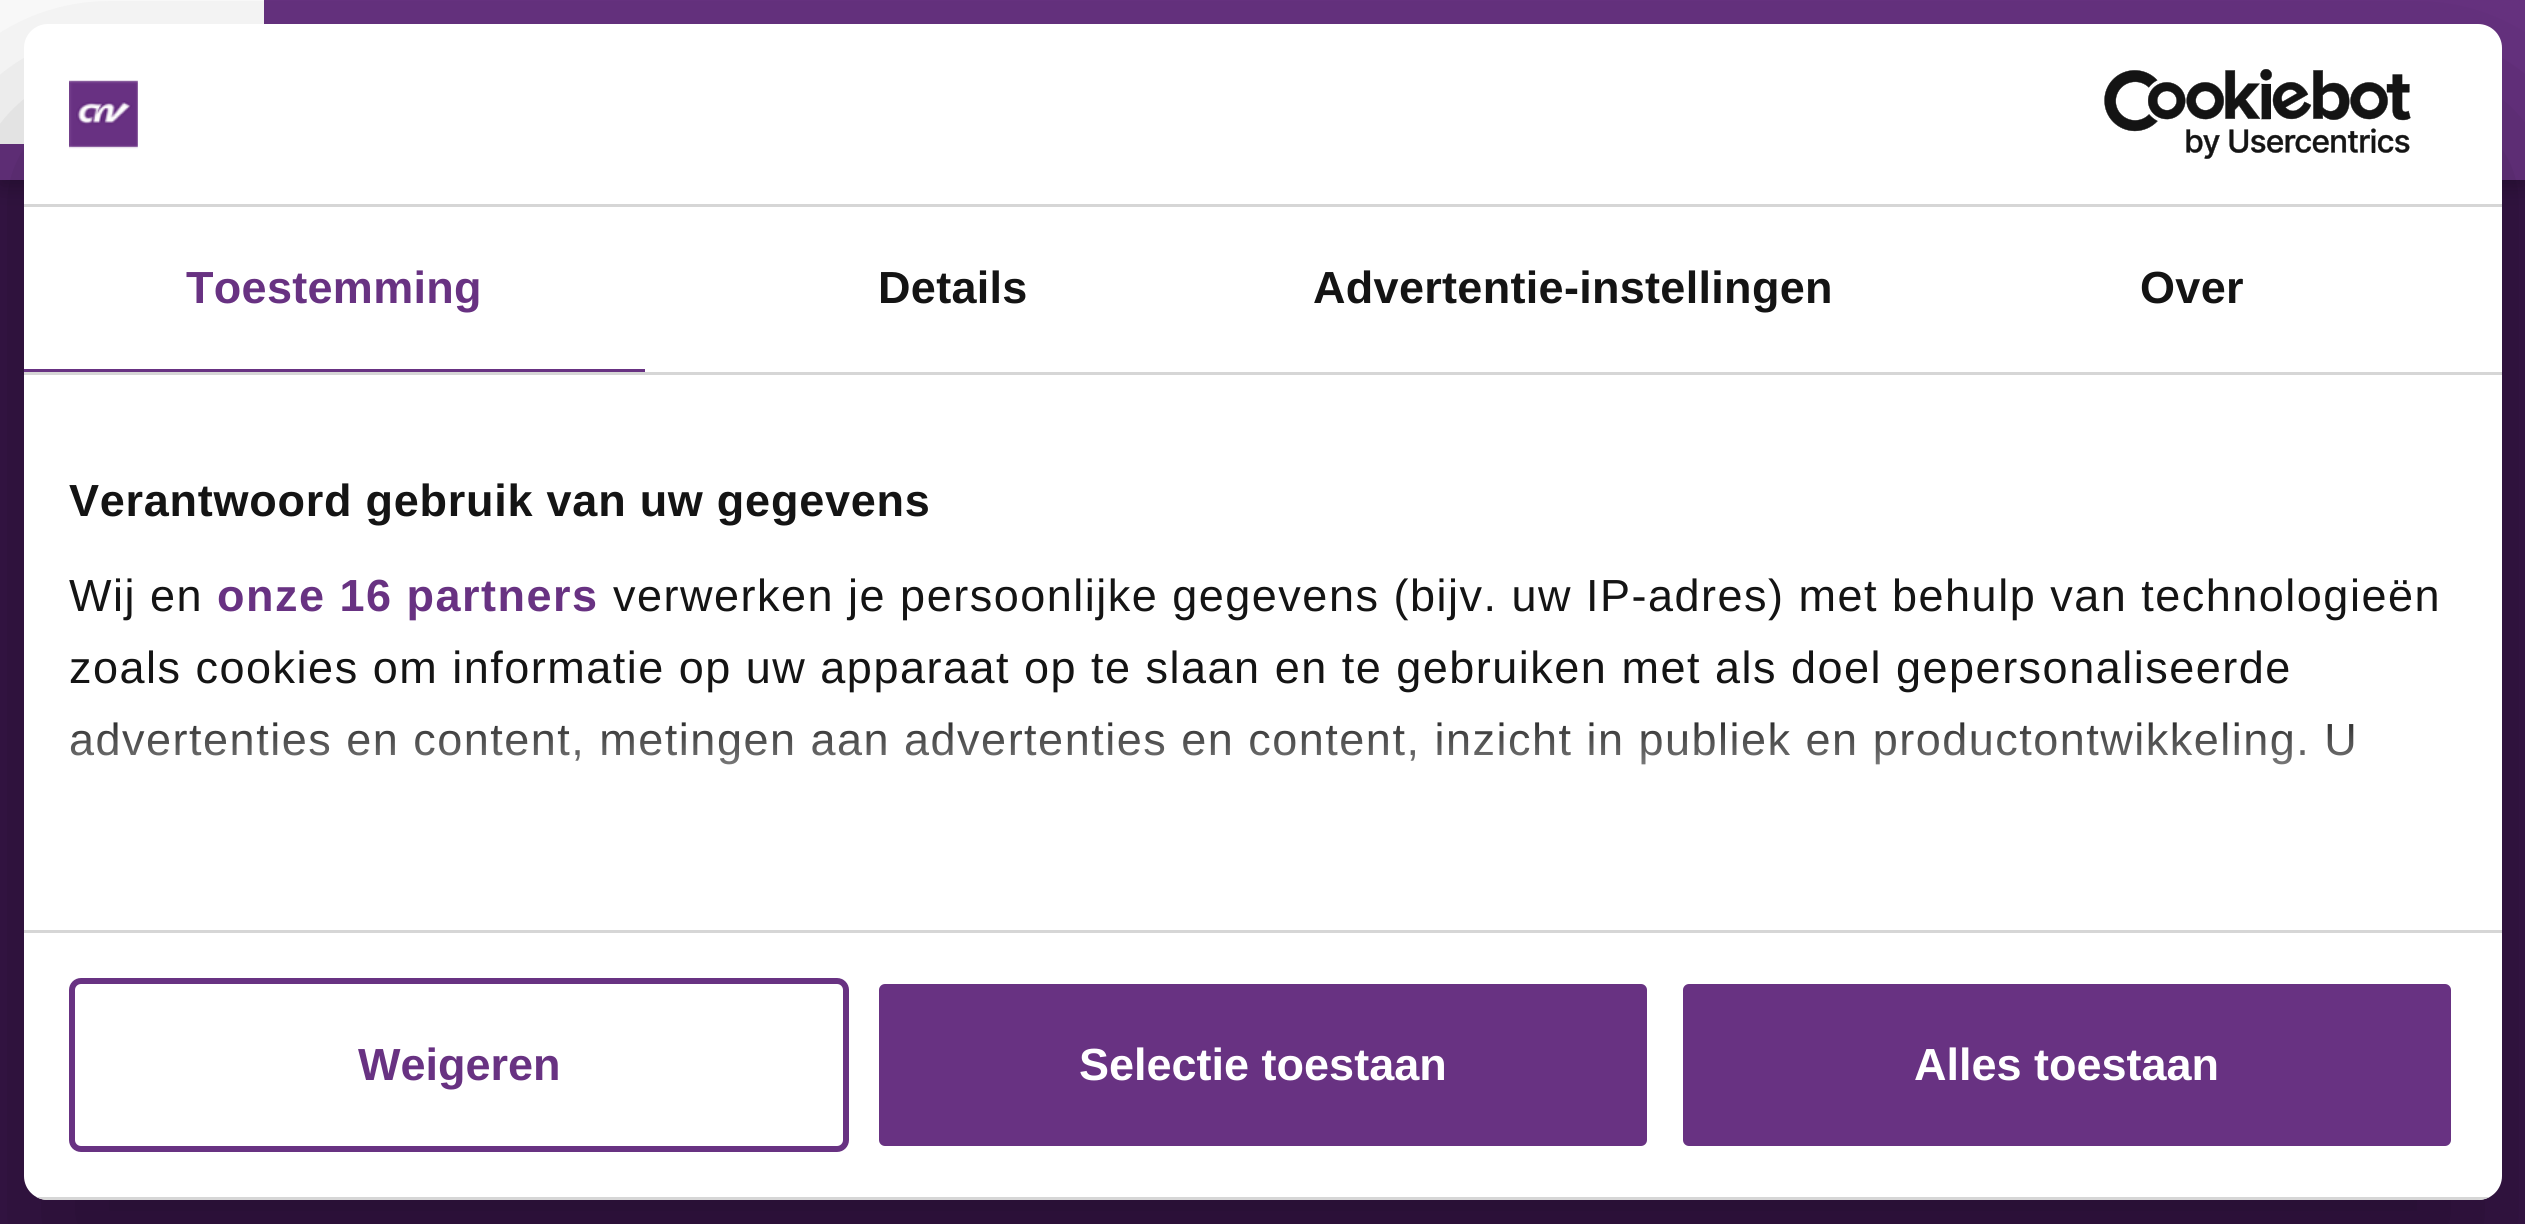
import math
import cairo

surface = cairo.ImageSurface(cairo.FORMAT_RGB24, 2525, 1224)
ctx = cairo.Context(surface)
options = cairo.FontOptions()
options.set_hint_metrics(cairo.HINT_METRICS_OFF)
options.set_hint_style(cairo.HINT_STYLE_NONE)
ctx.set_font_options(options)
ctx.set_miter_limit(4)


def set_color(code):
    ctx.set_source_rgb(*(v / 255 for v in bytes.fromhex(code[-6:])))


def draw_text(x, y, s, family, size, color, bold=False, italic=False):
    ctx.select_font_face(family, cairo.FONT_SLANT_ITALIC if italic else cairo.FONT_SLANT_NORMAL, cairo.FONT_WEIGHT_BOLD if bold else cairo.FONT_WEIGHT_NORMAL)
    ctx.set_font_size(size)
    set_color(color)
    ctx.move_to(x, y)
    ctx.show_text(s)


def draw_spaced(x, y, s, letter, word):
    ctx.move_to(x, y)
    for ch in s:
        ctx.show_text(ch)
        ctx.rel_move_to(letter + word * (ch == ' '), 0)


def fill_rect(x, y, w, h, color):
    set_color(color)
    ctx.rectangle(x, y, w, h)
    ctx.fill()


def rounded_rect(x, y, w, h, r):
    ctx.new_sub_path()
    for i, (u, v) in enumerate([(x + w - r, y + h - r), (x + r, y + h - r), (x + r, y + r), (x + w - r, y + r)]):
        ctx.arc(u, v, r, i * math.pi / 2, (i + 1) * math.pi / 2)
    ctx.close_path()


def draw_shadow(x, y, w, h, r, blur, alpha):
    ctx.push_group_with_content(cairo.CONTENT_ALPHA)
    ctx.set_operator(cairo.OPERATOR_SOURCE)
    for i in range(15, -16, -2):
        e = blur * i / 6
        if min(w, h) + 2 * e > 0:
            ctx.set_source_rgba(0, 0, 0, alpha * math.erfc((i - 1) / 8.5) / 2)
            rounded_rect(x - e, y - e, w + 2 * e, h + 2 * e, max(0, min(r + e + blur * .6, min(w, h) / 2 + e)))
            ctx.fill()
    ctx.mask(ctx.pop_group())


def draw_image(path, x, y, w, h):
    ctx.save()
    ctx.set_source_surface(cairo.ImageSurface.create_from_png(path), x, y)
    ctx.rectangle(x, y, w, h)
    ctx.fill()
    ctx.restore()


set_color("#371548")
ctx.paint()
set_color("#000000")
draw_shadow(0, 6, 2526, 180, 0, 10.5, 0.25)
fill_rect(0, 0, 2525, 180, "#683282")
fill_rect(0, 0, 264, 144, "#ffffff")
set_color("#000000")
draw_shadow(24, 120, 2478, 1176, 24, 102, 0.3)
set_color("#ffffff")
rounded_rect(24, 24, 2478, 1176, 24)
ctx.fill()
fill_rect(24, 204, 2478, 3, "#d6d6d6")
draw_image("assets/img1.png", 69, 80, 69, 69)
draw_image("assets/img2.png", 2104, 69, 307, 90)
fill_rect(24, 372, 2478, 3, "#d6d6d6")
fill_rect(24, 369, 621, 3, "#683282")
ctx.select_font_face("Liberation Sans", cairo.FONT_SLANT_NORMAL, cairo.FONT_WEIGHT_BOLD)
ctx.set_font_size(45)
draw_spaced(186, 303, "Toestemming", 0.3, 0)
set_color("#141414")
draw_spaced(878, 303, "Details", 0.3, 0)
draw_spaced(1313, 303, "Advertentie-instellingen", 0.3, 0)
draw_spaced(2140, 303, "Over", 0.3, 0)
fill_rect(24, 930, 2478, 3, "#d6d6d6")
set_color("#141414")
draw_spaced(69, 516, "Verantwoord gebruik van uw gegevens", 0.75, 0)
ctx.select_font_face("Liberation Sans")
draw_spaced(69, 611, "Wij en", 1.5, 0)
ctx.select_font_face("Liberation Sans", cairo.FONT_SLANT_NORMAL, cairo.FONT_WEIGHT_BOLD)
set_color("#683282")
draw_spaced(217, 611, "onze 16 partners", 1.5, 0)
ctx.select_font_face("Liberation Sans")
set_color("#141414")
draw_spaced(613, 611, "verwerken je persoonlijke gegevens (bijv. uw IP-adres) met behulp van technologieën", 1.5, 0)
draw_spaced(69, 683, "zoals cookies om informatie op uw apparaat op te slaan en te gebruiken met als doel gepersonaliseerde", 1.5, 0)
draw_spaced(69, 755, "advertenties en content, metingen aan advertenties en content, inzicht in publiek en productontwikkeling. U", 1.5, 0)
gradient = cairo.LinearGradient(1244, 930, 1244, 705)
gradient.add_color_stop_rgba(0, 1, 1, 1, 1)
gradient.add_color_stop_rgba(0.5, 1, 1, 1, 0.8)
gradient.add_color_stop_rgba(1, 1, 1, 1, 0)
ctx.set_source(gradient)
ctx.rectangle(70, 722, 2284, 43)
ctx.fill()
ctx.save()
rounded_rect(24, 24, 2478, 1176, 24)
ctx.clip()
fill_rect(36, 1197, 2454, 3, "#d6d6d6")
ctx.restore()
rounded_rect(72, 981, 774, 168, 9)
set_color("#683282")
ctx.set_line_width(6)
ctx.stroke()
draw_text(358, 1080, "Weigeren", "Liberation Sans", 45, "#683282", bold=True)
rounded_rect(876, 981, 774, 168, 9)
ctx.fill_preserve()
set_color("#ffffff")
ctx.stroke()
draw_text(1079, 1080, "Selectie toestaan", "Liberation Sans", 45, "#ffffff", bold=True)
set_color("#683282")
rounded_rect(1680, 981, 774, 168, 9)
ctx.fill_preserve()
set_color("#ffffff")
ctx.stroke()
draw_text(1914, 1080, "Alles toestaan", "Liberation Sans", 45, "#ffffff", bold=True)
surface.write_to_png("output.png")
